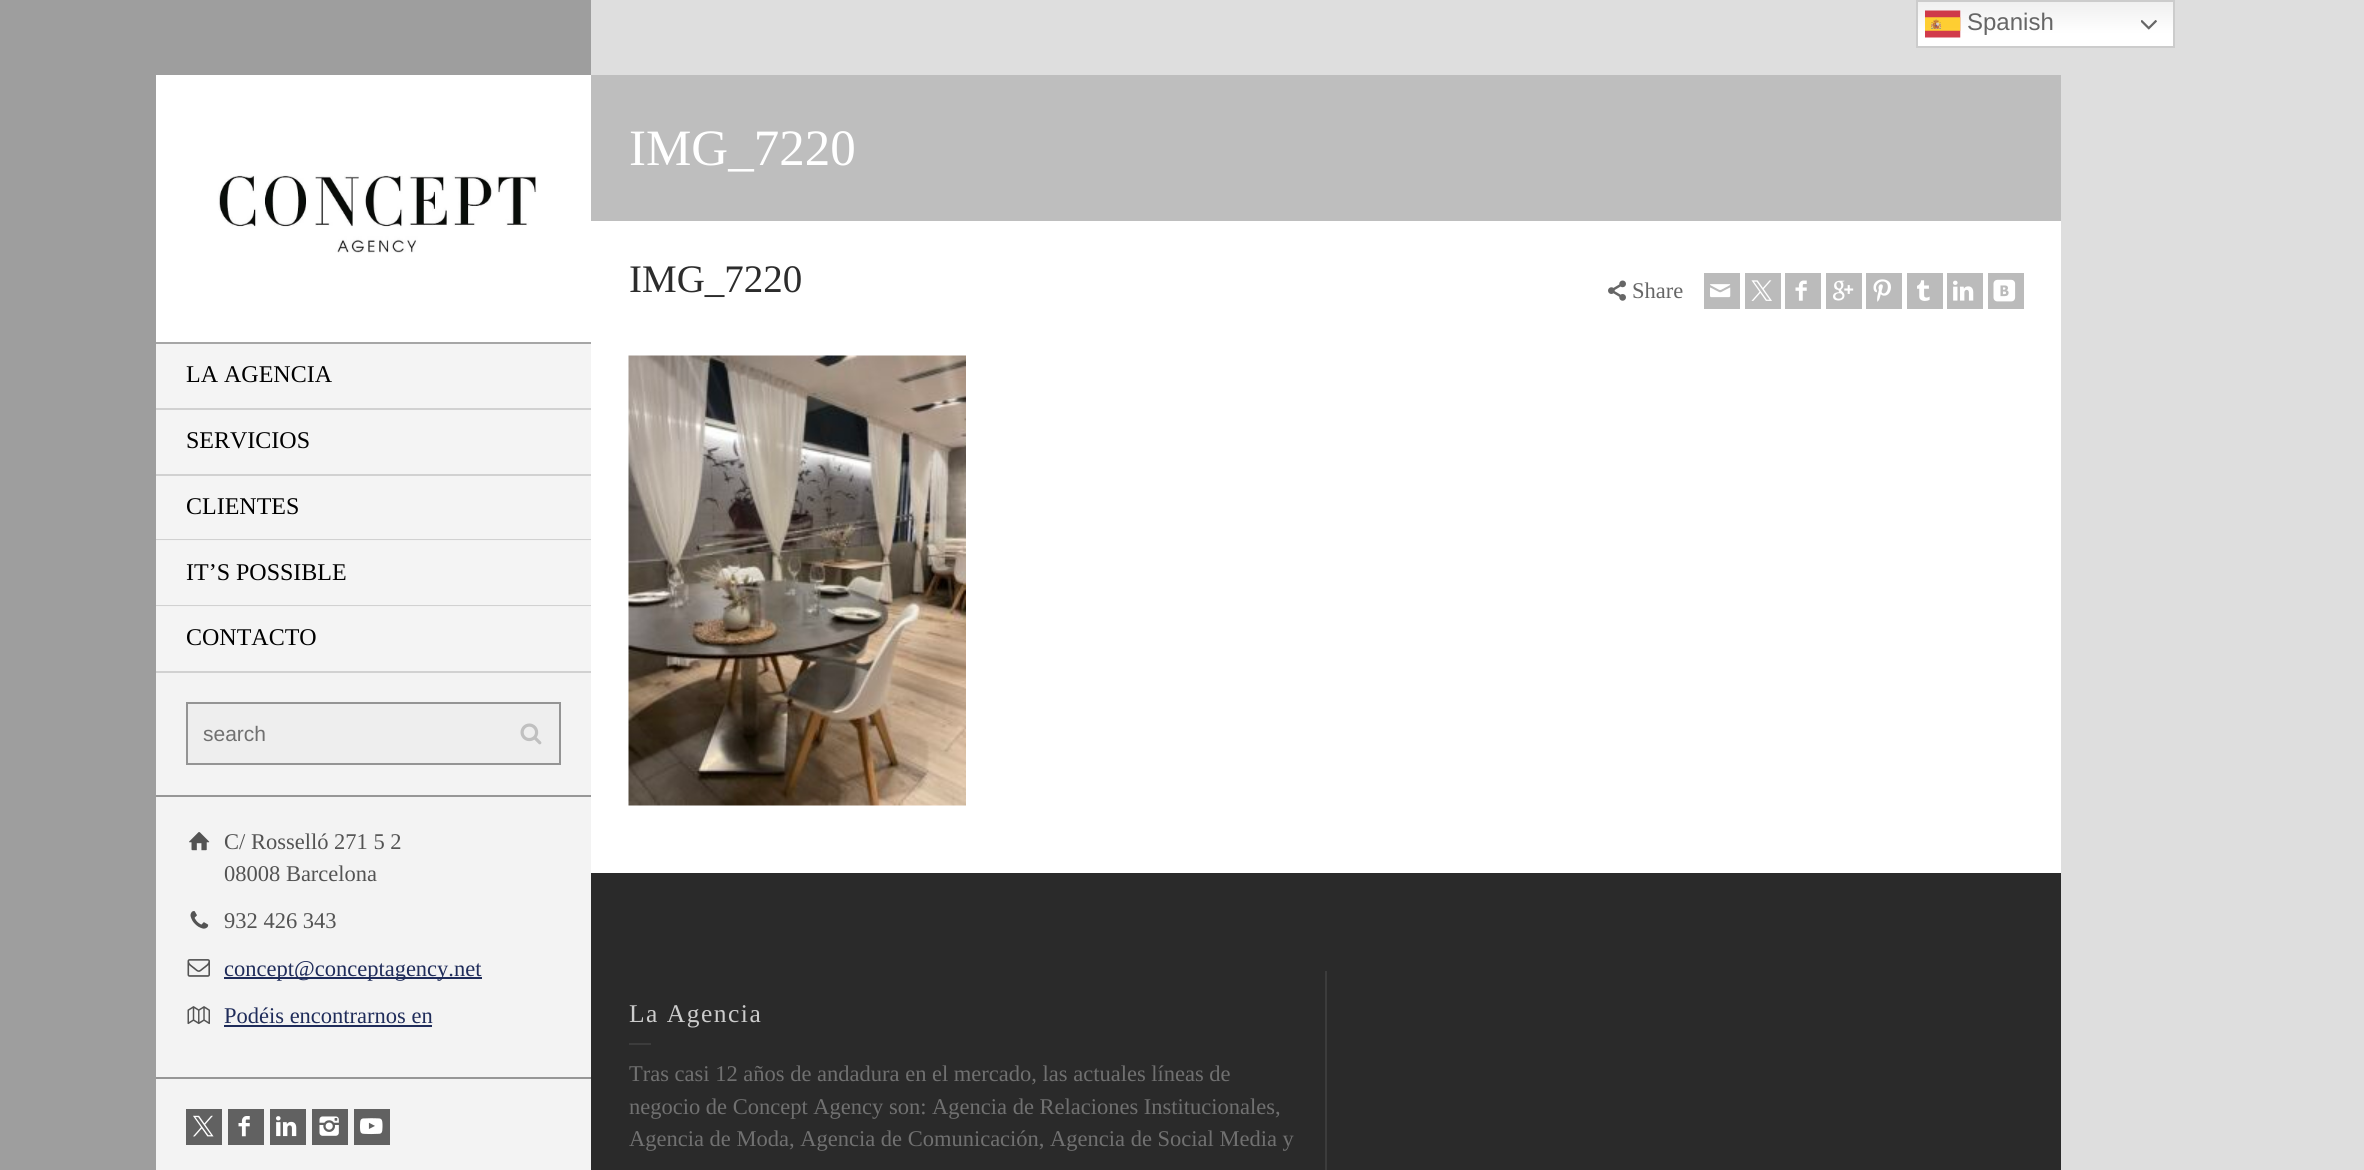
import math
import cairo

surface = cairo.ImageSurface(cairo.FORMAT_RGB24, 2364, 1170)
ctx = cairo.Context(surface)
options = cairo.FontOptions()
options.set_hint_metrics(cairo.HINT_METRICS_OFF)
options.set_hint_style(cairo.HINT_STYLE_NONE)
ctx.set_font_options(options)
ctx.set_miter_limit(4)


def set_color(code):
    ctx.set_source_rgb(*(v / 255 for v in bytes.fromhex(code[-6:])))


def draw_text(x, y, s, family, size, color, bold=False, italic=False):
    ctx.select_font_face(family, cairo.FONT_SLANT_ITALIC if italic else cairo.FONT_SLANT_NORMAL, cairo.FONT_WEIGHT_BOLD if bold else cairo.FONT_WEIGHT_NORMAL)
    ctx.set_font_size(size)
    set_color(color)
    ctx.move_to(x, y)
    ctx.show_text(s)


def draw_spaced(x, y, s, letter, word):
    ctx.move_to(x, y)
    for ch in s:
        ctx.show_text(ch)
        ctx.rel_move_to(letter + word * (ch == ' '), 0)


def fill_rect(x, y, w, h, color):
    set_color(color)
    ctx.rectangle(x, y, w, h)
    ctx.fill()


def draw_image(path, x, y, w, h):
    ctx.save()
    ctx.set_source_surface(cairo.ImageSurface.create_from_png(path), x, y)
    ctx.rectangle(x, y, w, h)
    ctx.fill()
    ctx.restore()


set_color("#dedede")
ctx.paint()
gradient = cairo.LinearGradient(2045, 0, 2045, 48)
gradient.add_color_stop_rgba(0, 0.937, 0.937, 0.937, 1)
gradient.add_color_stop_rgba(0.7, 1, 1, 1, 1)
ctx.set_source(gradient)
ctx.rectangle(1918, 2, 255, 44)
ctx.fill()
ctx.rectangle(1917, 1, 257, 46)
set_color("#cccccc")
ctx.stroke()
draw_image("assets/img1.png", 1925, 10, 36, 28)
draw_text(1967, 30, "Spanish", "Liberation Sans", 24, "#666666")
draw_image("assets/img2.png", 2141, 20, 16, 10)
fill_rect(0, 0, 591, 1170, "#9e9e9e")
fill_rect(156, 607, 435, 64, "#f4f4f4")
fill_rect(156, 606, 435, 1, "#f2f2f2")
fill_rect(156, 541, 435, 64, "#f4f4f4")
fill_rect(156, 605, 435, 1, "#d1d1d1")
fill_rect(156, 540, 435, 1, "#f2f2f2")
fill_rect(156, 75, 435, 267, "#ffffff")
fill_rect(156, 342, 435, 2, "#a6a6a6")
draw_image("assets/img3.png", 218, 175, 319, 78)
fill_rect(156, 344, 435, 64, "#f4f4f4")
fill_rect(156, 408, 435, 2, "#d1d1d1")
draw_text(186, 382, "LA AGENCIA", "Liberation Serif", 24, "#000000")
fill_rect(156, 410, 435, 64, "#f4f4f4")
fill_rect(156, 474, 435, 2, "#d1d1d1")
draw_text(186, 448, "SERVICIOS", "Liberation Serif", 24, "#000000")
fill_rect(156, 476, 435, 63, "#f4f4f4")
fill_rect(156, 539, 435, 1, "#d1d1d1")
draw_text(186, 514, "CLIENTES", "Liberation Serif", 24, "#000000")
draw_text(186, 580, "IT’S POSSIBLE", "Liberation Serif", 24, "#000000")
fill_rect(156, 671, 435, 2, "#d1d1d1")
draw_text(186, 645, "CONTACTO", "Liberation Serif", 24, "#000000")
fill_rect(156, 673, 435, 122, "#f3f3f3")
fill_rect(156, 795, 435, 2, "#969696")
set_color("#eeeeee")
ctx.rectangle(187, 703, 373, 61)
ctx.fill_preserve()
set_color("#949494")
ctx.stroke()
draw_text(203, 741, "search", "Liberation Sans", 21, "#707070")
draw_image("assets/img4.png", 520, 723, 22, 22)
fill_rect(156, 797, 435, 373, "#f3f3f3")
draw_image("assets/img5.png", 189, 832, 21, 19)
draw_text(224, 849, "C/ Rosselló 271 5 2", "Liberation Serif", 22.5, "#535353")
draw_text(224, 881, "08008 Barcelona", "Liberation Serif", 22.5, "#535353")
draw_image("assets/img6.png", 190, 911, 19, 18)
draw_text(224, 928, "932 426 343", "Liberation Serif", 22.5, "#535353")
draw_image("assets/img7.png", 187, 959, 23, 18)
fill_rect(224, 977, 258, 2, "#1f2c5a")
draw_text(224, 976, "concept@conceptagency.net", "Liberation Serif", 22.5, "#1f2c5a")
draw_image("assets/img8.png", 187, 1006, 23, 19)
draw_text(224, 1023, "Podéis encontrarnos en", "Liberation Serif", 22.5, "#1f2c5a")
fill_rect(224, 1025, 208, 2, "#1f2c5a")
fill_rect(156, 1077, 435, 2, "#969696")
fill_rect(186, 1109, 36, 36, "#616161")
draw_image("assets/img9.png", 193, 1115, 21, 22)
fill_rect(228, 1109, 36, 36, "#616161")
draw_image("assets/img10.png", 238, 1116, 12, 21)
fill_rect(270, 1109, 36, 36, "#616161")
draw_image("assets/img11.png", 276, 1116, 21, 21)
fill_rect(312, 1109, 36, 36, "#616161")
draw_image("assets/img12.png", 319, 1116, 20, 20)
fill_rect(354, 1109, 36, 36, "#616161")
draw_image("assets/img13.png", 360, 1118, 23, 17)
fill_rect(591, 75, 1470, 146, "#bebebe")
draw_text(629, 165, "IMG_7220", "Liberation Serif", 51, "#ffffff")
fill_rect(591, 221, 1470, 652, "#ffffff")
draw_text(629, 292, "IMG_7220", "Liberation Serif", 39, "#2c2c2c")
draw_image("assets/img14.png", 1608, 280, 18, 21)
draw_text(1632, 298, "Share", "Liberation Serif", 22.5, "#666666")
fill_rect(1704, 273, 36, 36, "#bbbbbb")
draw_image("assets/img15.png", 1710, 284, 21, 14)
fill_rect(1745, 273, 36, 36, "#bbbbbb")
draw_image("assets/img16.png", 1751, 280, 21, 21)
fill_rect(1785, 273, 36, 36, "#bbbbbb")
draw_image("assets/img17.png", 1795, 280, 12, 21)
fill_rect(1826, 273, 36, 36, "#bbbbbb")
draw_image("assets/img18.png", 1833, 280, 21, 21)
fill_rect(1866, 273, 36, 36, "#bbbbbb")
draw_image("assets/img19.png", 1873, 279, 18, 23)
fill_rect(1907, 273, 36, 36, "#bbbbbb")
draw_image("assets/img20.png", 1917, 280, 13, 21)
fill_rect(1947, 273, 36, 36, "#bbbbbb")
draw_image("assets/img21.png", 1953, 280, 21, 21)
fill_rect(1988, 273, 36, 36, "#bbbbbb")
draw_image("assets/img22.png", 1993, 279, 23, 23)
draw_image("assets/img23.png", 628, 355, 338, 451)
fill_rect(591, 873, 1470, 297, "#2a2a2a")
ctx.set_font_size(25.5)
set_color("#cccccc")
draw_spaced(629, 1022, "La Agencia", 1.5, 0)
fill_rect(629, 1043, 22, 2, "#3c3c3c")
draw_text(629, 1081, "Tras casi 12 años de andadura en el mercado, las actuales líneas de", "Liberation Serif", 22.5, "#707070")
draw_text(629, 1114, "negocio de Concept Agency son: Agencia de Relaciones Institucionales,", "Liberation Serif", 22.5, "#707070")
draw_text(629, 1146, "Agencia de Moda, Agencia de Comunicación, Agencia de Social Media y", "Liberation Serif", 22.5, "#707070")
fill_rect(1325, 971, 2, 199, "#3c3c3c")
surface.write_to_png("output.png")
